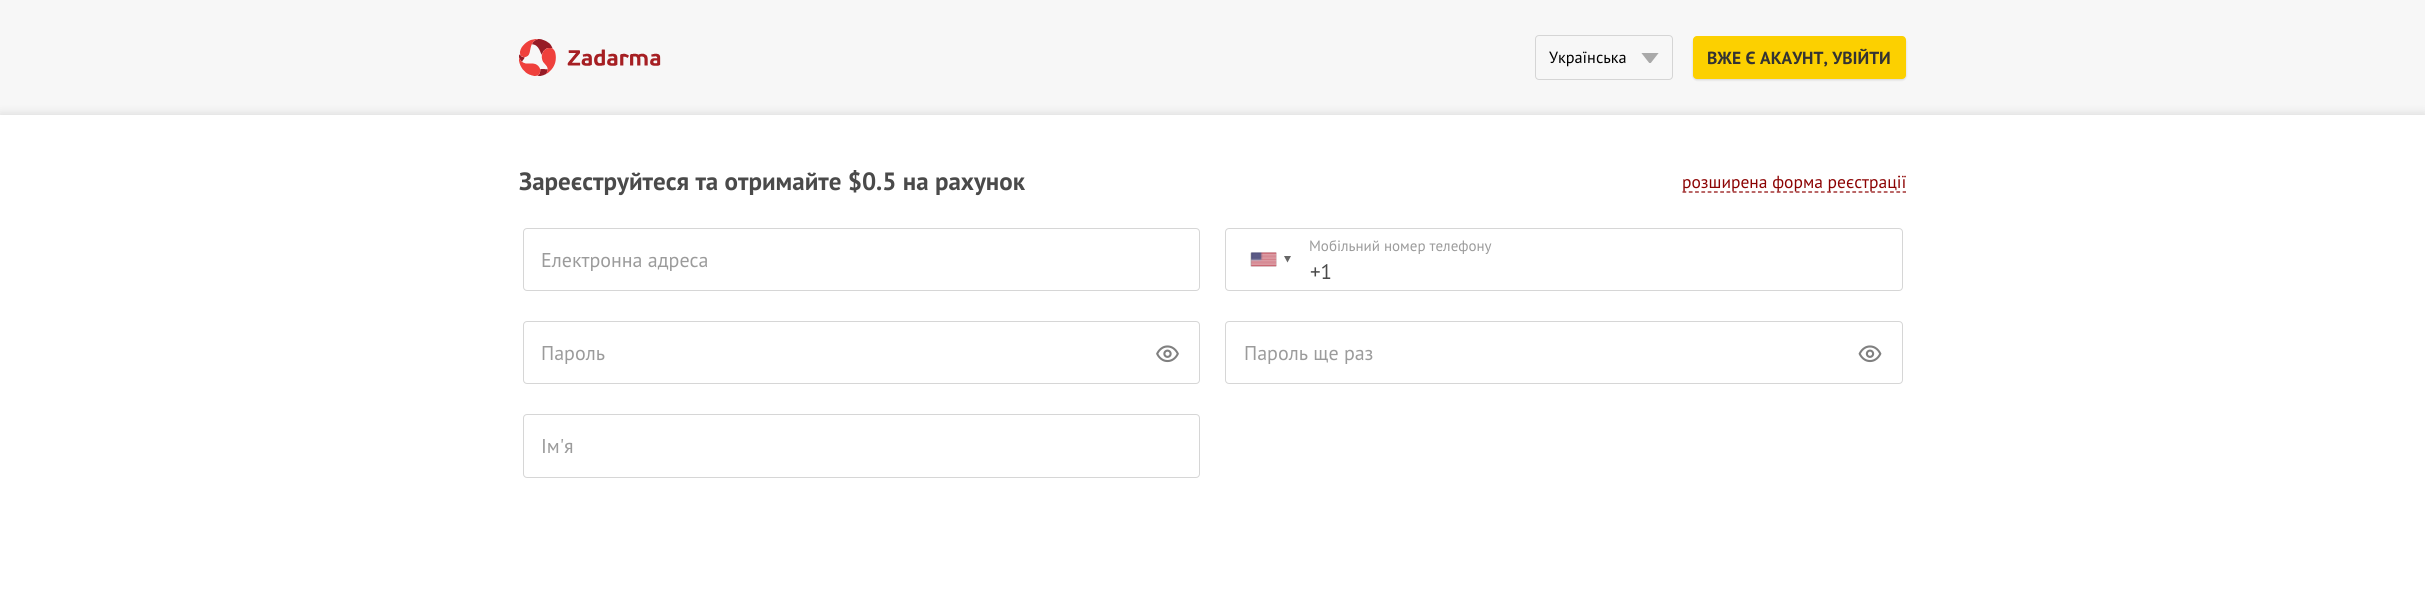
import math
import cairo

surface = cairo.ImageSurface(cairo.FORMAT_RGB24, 2425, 598)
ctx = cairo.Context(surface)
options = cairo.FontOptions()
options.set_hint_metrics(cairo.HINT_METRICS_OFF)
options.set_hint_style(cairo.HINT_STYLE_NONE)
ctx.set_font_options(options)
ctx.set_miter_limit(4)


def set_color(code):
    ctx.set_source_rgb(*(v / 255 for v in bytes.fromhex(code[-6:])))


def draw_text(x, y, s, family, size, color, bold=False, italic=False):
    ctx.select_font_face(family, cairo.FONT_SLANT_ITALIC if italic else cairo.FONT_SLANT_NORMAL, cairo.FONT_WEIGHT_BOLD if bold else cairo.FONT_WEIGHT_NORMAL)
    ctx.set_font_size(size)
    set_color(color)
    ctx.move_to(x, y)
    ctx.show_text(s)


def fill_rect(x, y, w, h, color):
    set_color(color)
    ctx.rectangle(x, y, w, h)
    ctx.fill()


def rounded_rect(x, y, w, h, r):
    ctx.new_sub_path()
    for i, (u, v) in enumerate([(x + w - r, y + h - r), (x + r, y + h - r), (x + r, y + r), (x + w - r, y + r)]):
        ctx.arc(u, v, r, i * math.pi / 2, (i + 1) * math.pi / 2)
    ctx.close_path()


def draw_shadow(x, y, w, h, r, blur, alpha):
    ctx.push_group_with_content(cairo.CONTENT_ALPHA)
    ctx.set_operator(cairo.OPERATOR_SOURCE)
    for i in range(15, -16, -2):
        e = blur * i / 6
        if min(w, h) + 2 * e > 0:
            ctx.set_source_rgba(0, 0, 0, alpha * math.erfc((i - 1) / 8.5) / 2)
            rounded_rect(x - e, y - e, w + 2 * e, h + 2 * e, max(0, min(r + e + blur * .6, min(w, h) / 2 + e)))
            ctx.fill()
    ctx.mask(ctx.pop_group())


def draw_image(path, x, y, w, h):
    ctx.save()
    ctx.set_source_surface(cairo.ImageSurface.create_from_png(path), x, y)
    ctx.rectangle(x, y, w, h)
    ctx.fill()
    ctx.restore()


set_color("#f7f7f7")
ctx.paint()
draw_image("assets/img1.png", 519, 39, 142, 37)
rounded_rect(1535.5, 35.5, 137, 44, 3.5)
set_color("#d5d5d5")
ctx.set_line_width(1)
ctx.stroke()
draw_text(1549, 63, "Українська", "PT Sans", 16.25, "#000000")
ctx.save()
ctx.rectangle(1641, 53, 18, 10)
ctx.clip()
set_color("#a9a9a9")
ctx.set_fill_rule(cairo.FILL_RULE_EVEN_ODD)
ctx.new_path()
ctx.move_to(1650, 64)
ctx.line_to(1659, 52.5)
ctx.line_to(1641, 52.5)
ctx.close_path()
ctx.fill()
ctx.restore()
set_color("#000000")
draw_shadow(1693, 38, 213, 42, 4, 1, 0.14)
set_color("#fcd000")
rounded_rect(1693, 36, 213, 43, 4)
ctx.fill()
draw_text(1707, 64, "ВЖЕ Є АКАУНТ, УВІЙТИ", "PT Sans", 17.5, "#333333", bold=True)
set_color("#000000")
draw_shadow(0, 115, 2425, 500, 0, 5.5, 0.14)
fill_rect(0, 115, 2425, 483, "#ffffff")
draw_text(519, 190, "Зареєструйтеся та отримайте $0.5 на рахунок", "PT Sans", 25, "#4a4a4a", bold=True)
draw_text(1682, 188, "розширена форма реєстрації", "PT Sans", 17.5, "#8c0303")
ctx.new_path()
ctx.move_to(1682.5, 192)
ctx.line_to(1906, 192)
ctx.set_line_width(1.2)
ctx.set_dash([3.75, 2.54])
ctx.stroke()
rounded_rect(523.5, 228.5, 676, 62, 3.5)
set_color("#d6d6d6")
ctx.set_line_width(1)
ctx.set_dash([])
ctx.stroke()
draw_text(541, 267, "Електронна адреса", "PT Sans", 20, "#9b9b9b")
rounded_rect(1225.5, 228.5, 677, 62, 3.5)
set_color("#d6d6d6")
ctx.stroke()
draw_text(1309, 251, "Мобільний номер телефону", "PT Sans", 15, "#9b9b9b")
set_color("#888888")
draw_shadow(1251, 253, 25, 13, 0, 0.5, 1)
draw_image("assets/img2.png", 1251, 252, 26, 15)
set_color("#666666")
ctx.new_path()
ctx.move_to(1284, 256)
ctx.line_to(1291, 256)
ctx.line_to(1287.5, 262.5)
ctx.close_path()
ctx.fill()
draw_text(1310, 279, "+1", "PT Sans", 21, "#4a4a4a")
rounded_rect(523.5, 321.5, 676, 62, 3.5)
set_color("#d6d6d6")
ctx.stroke()
draw_text(541, 360, "Пароль", "PT Sans", 20, "#9b9b9b")
draw_image("assets/img3.png", 1156, 345, 23, 18)
rounded_rect(1225.5, 321.5, 677, 62, 3.5)
set_color("#d6d6d6")
ctx.stroke()
draw_text(1244, 360, "Пароль ще раз", "PT Sans", 20, "#9b9b9b")
draw_image("assets/img4.png", 1858, 345, 24, 18)
rounded_rect(523.5, 414.5, 676, 63, 3.5)
set_color("#d6d6d6")
ctx.stroke()
draw_text(541, 453, "Ім'я", "PT Sans", 20, "#9b9b9b")
surface.write_to_png("output.png")
